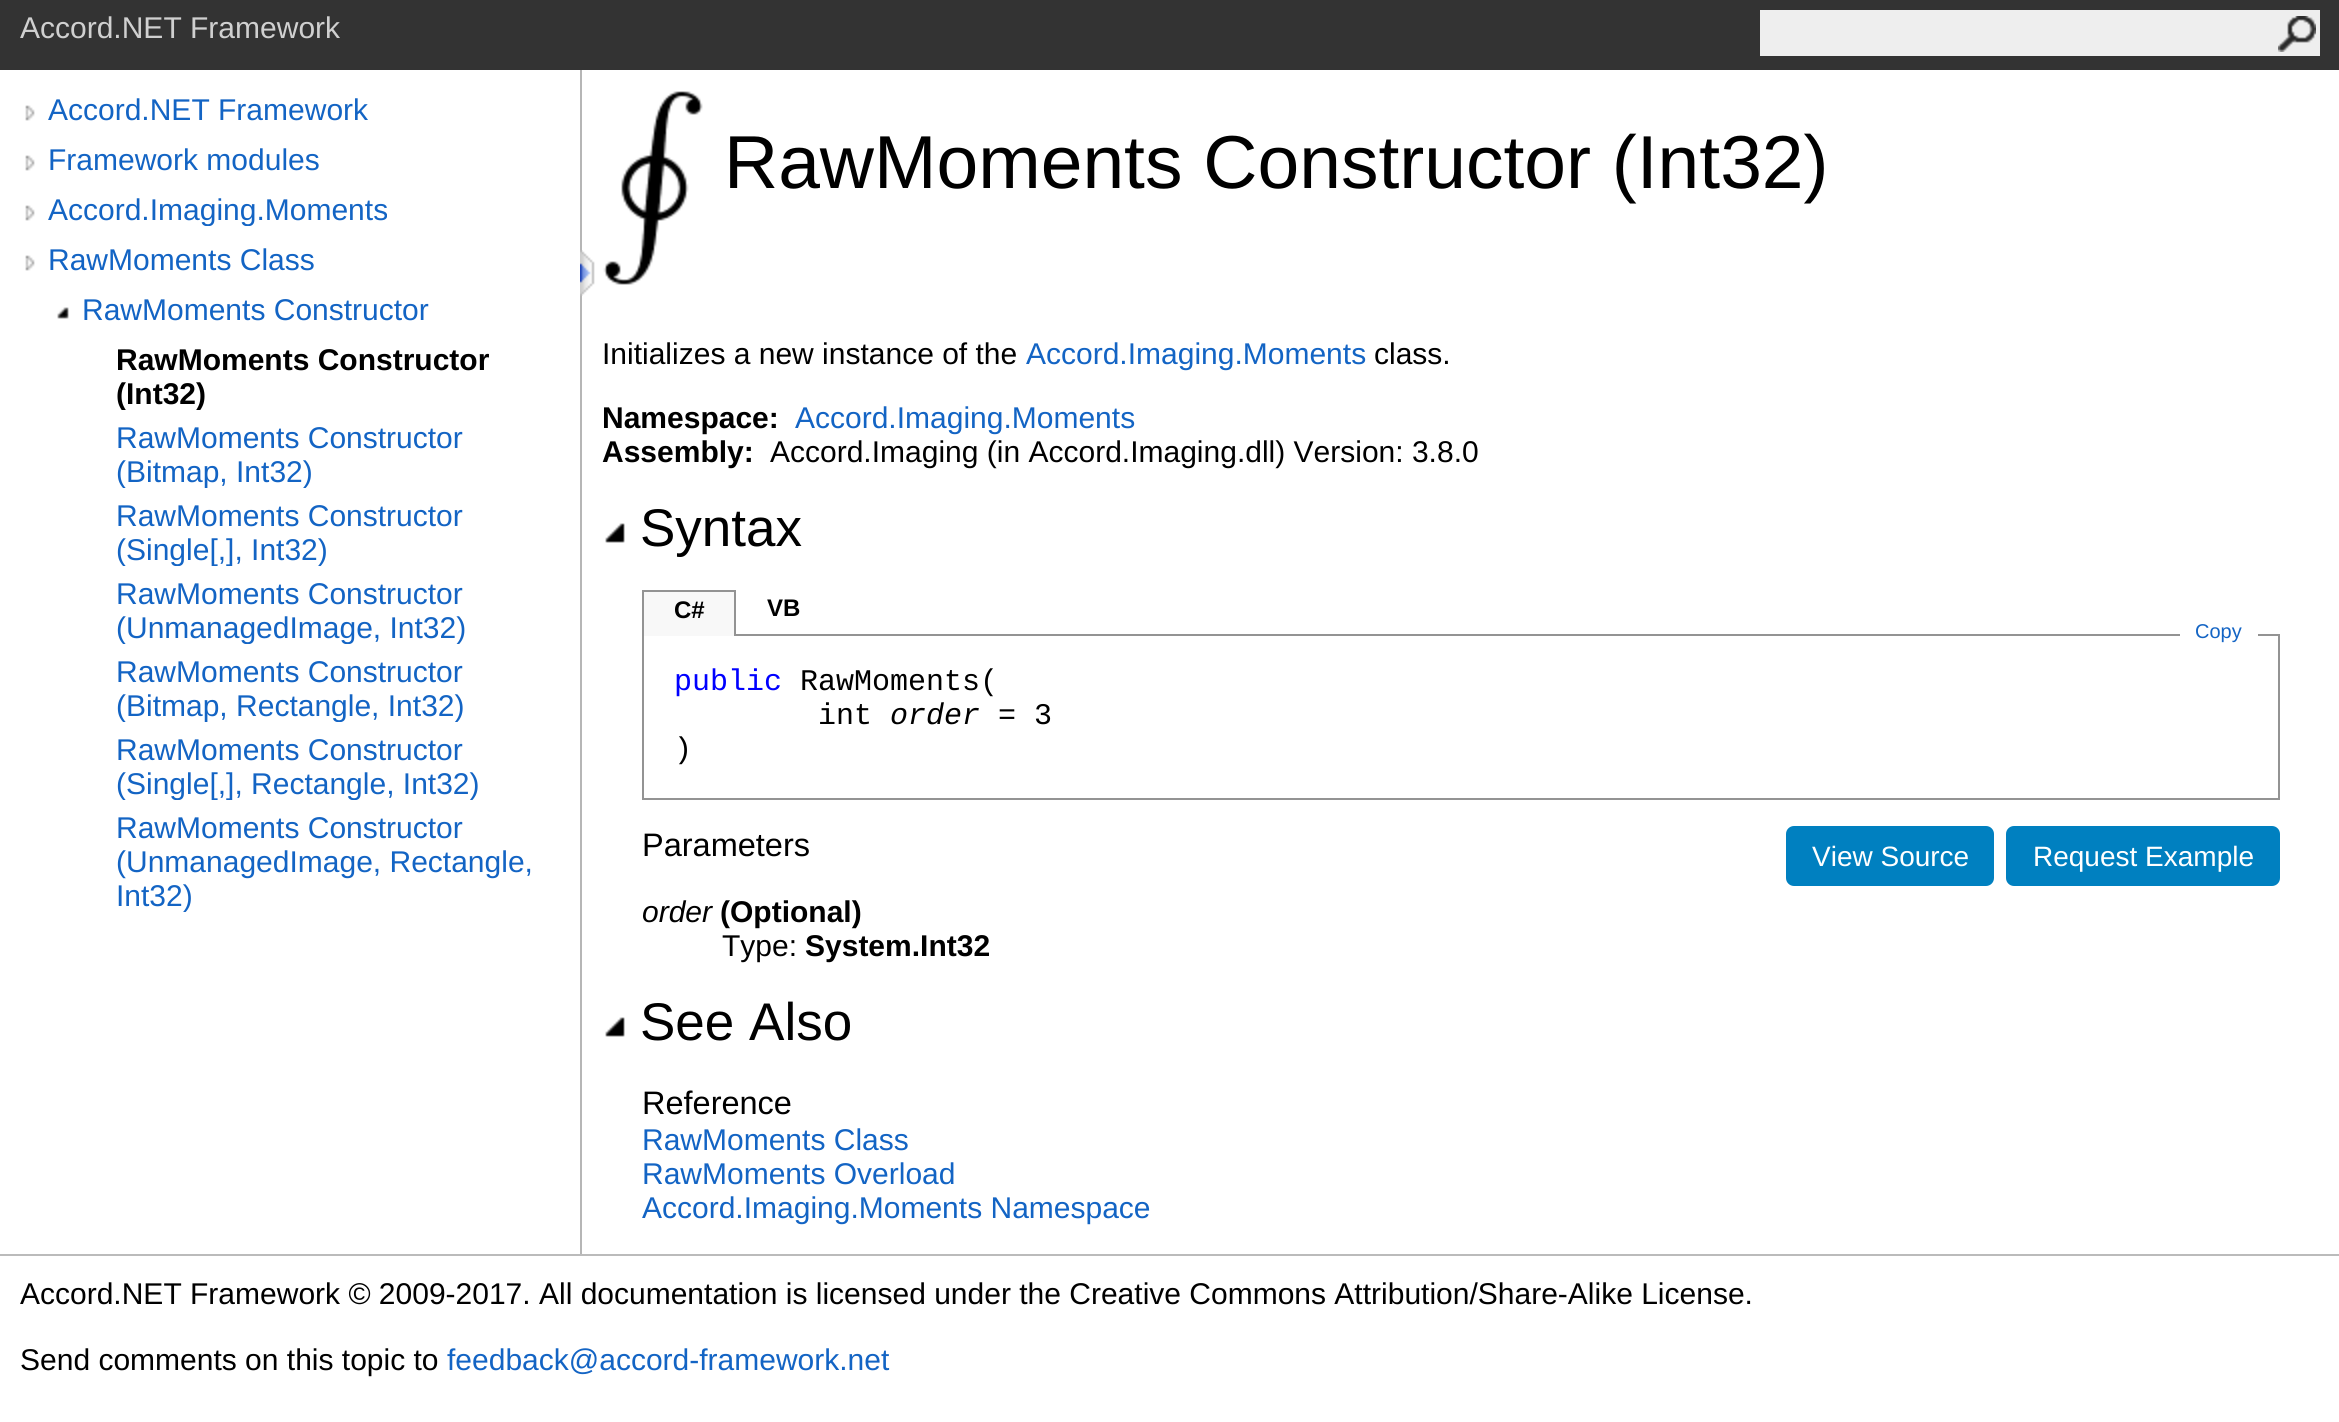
import math
import cairo

surface = cairo.ImageSurface(cairo.FORMAT_RGB24, 2339, 1422)
ctx = cairo.Context(surface)
options = cairo.FontOptions()
options.set_hint_metrics(cairo.HINT_METRICS_OFF)
options.set_hint_style(cairo.HINT_STYLE_NONE)
ctx.set_font_options(options)
ctx.set_miter_limit(4)


def set_color(code):
    ctx.set_source_rgb(*(v / 255 for v in bytes.fromhex(code[-6:])))


def draw_text(x, y, s, family, size, color, bold=False, italic=False):
    ctx.select_font_face(family, cairo.FONT_SLANT_ITALIC if italic else cairo.FONT_SLANT_NORMAL, cairo.FONT_WEIGHT_BOLD if bold else cairo.FONT_WEIGHT_NORMAL)
    ctx.set_font_size(size)
    set_color(color)
    ctx.move_to(x, y)
    ctx.show_text(s)


def fill_rect(x, y, w, h, color):
    set_color(color)
    ctx.rectangle(x, y, w, h)
    ctx.fill()


def rounded_rect(x, y, w, h, r):
    ctx.new_sub_path()
    for i, (u, v) in enumerate([(x + w - r, y + h - r), (x + r, y + h - r), (x + r, y + r), (x + w - r, y + r)]):
        ctx.arc(u, v, r, i * math.pi / 2, (i + 1) * math.pi / 2)
    ctx.close_path()


def draw_image(path, x, y, w, h):
    ctx.save()
    ctx.set_source_surface(cairo.ImageSurface.create_from_png(path), x, y)
    ctx.rectangle(x, y, w, h)
    ctx.fill()
    ctx.restore()


set_color("#ffffff")
ctx.paint()
fill_rect(0, 0, 2339, 70, "#333333")
draw_text(20, 38, "Accord.NET Framework", "Liberation Sans", 30, "#d0d0d0")
fill_rect(1760, 10, 560, 46, "#eeeeee")
draw_image("assets/img1.png", 2278, 16, 38, 36)
fill_rect(580, 70, 2, 1184, "#b6b6b6")
draw_image("assets/img2.png", 25, 105, 10, 16)
draw_text(48, 120, "Accord.NET Framework", "Liberation Sans", 30, "#1364c4")
draw_image("assets/img2.png", 25, 155, 10, 16)
draw_text(48, 170, "Framework modules", "Liberation Sans", 30, "#1364c4")
draw_image("assets/img2.png", 25, 205, 10, 16)
ctx.save()
ctx.rectangle(48, 192, 532, 34)
ctx.clip()
draw_text(48, 220, "Accord.Imaging.Moments", "Liberation Sans", 30, "#1364c4")
ctx.restore()
draw_image("assets/img2.png", 25, 255, 10, 16)
draw_text(48, 270, "RawMoments Class", "Liberation Sans", 30, "#1364c4")
draw_image("assets/img3.png", 57, 307, 12, 12)
draw_text(82, 320, "RawMoments Constructor", "Liberation Sans", 30, "#1364c4")
draw_text(116, 370, "RawMoments Constructor", "Liberation Sans", 30, "#000000", bold=True)
ctx.save()
ctx.rectangle(116, 342, 464, 68)
ctx.clip()
draw_text(116, 404, "(Int32)", "Liberation Sans", 30, "#000000", bold=True)
ctx.restore()
draw_text(116, 448, "RawMoments Constructor", "Liberation Sans", 30, "#1364c4")
ctx.save()
ctx.rectangle(116, 420, 464, 68)
ctx.clip()
draw_text(116, 482, "(Bitmap, Int32)", "Liberation Sans", 30, "#1364c4")
ctx.restore()
draw_text(116, 526, "RawMoments Constructor", "Liberation Sans", 30, "#1364c4")
ctx.save()
ctx.rectangle(116, 498, 464, 68)
ctx.clip()
draw_text(116, 560, "(Single[,], Int32)", "Liberation Sans", 30, "#1364c4")
ctx.restore()
draw_text(116, 604, "RawMoments Constructor", "Liberation Sans", 30, "#1364c4")
ctx.save()
ctx.rectangle(116, 576, 464, 68)
ctx.clip()
draw_text(116, 638, "(UnmanagedImage, Int32)", "Liberation Sans", 30, "#1364c4")
ctx.restore()
draw_text(116, 682, "RawMoments Constructor", "Liberation Sans", 30, "#1364c4")
ctx.save()
ctx.rectangle(116, 654, 464, 68)
ctx.clip()
draw_text(116, 716, "(Bitmap, Rectangle, Int32)", "Liberation Sans", 30, "#1364c4")
ctx.restore()
draw_text(116, 760, "RawMoments Constructor", "Liberation Sans", 30, "#1364c4")
ctx.save()
ctx.rectangle(116, 732, 464, 68)
ctx.clip()
draw_text(116, 794, "(Single[,], Rectangle, Int32)", "Liberation Sans", 30, "#1364c4")
ctx.restore()
draw_text(116, 838, "RawMoments Constructor", "Liberation Sans", 30, "#1364c4")
draw_text(116, 872, "(UnmanagedImage, Rectangle,", "Liberation Sans", 30, "#1364c4")
ctx.save()
ctx.rectangle(116, 810, 464, 102)
ctx.clip()
draw_text(116, 906, "Int32)", "Liberation Sans", 30, "#1364c4")
ctx.restore()
draw_image("assets/img4.png", 580, 250, 15, 46)
draw_image("assets/img5.png", 603, 91, 100, 194)
draw_text(724, 188, "RawMoments Constructor (Int32)", "Liberation Sans", 75, "#000000")
draw_text(602, 364, "Initializes a new instance of the", "Liberation Sans", 30, "#000000")
draw_text(1026, 364, "Accord.Imaging.Moments", "Liberation Sans", 30, "#1364c4")
draw_text(1374, 364, "class.", "Liberation Sans", 30, "#000000")
draw_text(602, 428, "Namespace:", "Liberation Sans", 30, "#000000", bold=True)
draw_text(795, 428, "Accord.Imaging.Moments", "Liberation Sans", 30, "#1364c4")
draw_text(602, 462, "Assembly:", "Liberation Sans", 30, "#000000", bold=True)
draw_text(770, 462, "Accord.Imaging (in Accord.Imaging.dll) Version: 3.8.0", "Liberation Sans", 30, "#000000")
draw_image("assets/img6.png", 605, 523, 20, 20)
draw_text(640, 546, "Syntax", "Liberation Sans", 53, "#000000")
ctx.rectangle(643, 635, 1636, 164)
set_color("#939393")
ctx.stroke()
fill_rect(644, 592, 90, 44, "#f8f8f8")
fill_rect(642, 590, 94, 2, "#939393")
fill_rect(734, 590, 2, 46, "#939393")
fill_rect(642, 590, 2, 46, "#939393")
draw_text(674, 618, "C#", "Liberation Sans", 24, "#000000", bold=True)
draw_text(767, 616, "VB", "Liberation Sans", 24, "#000000", bold=True)
fill_rect(2180, 634, 78, 2, "#ffffff")
draw_text(2195, 638, "Copy", "Liberation Sans", 20, "#1364c4")
draw_text(674, 690, "public", "Liberation Mono", 30, "#0000ff")
draw_text(800, 690, "RawMoments(", "Liberation Mono", 30, "#000000")
draw_text(818, 724, "int", "Liberation Mono", 30, "#000000")
draw_text(890, 724, "order", "Liberation Mono", 30, "#000000", italic=True)
draw_text(998, 724, "= 3", "Liberation Mono", 30, "#000000")
draw_text(674, 758, ")", "Liberation Mono", 30, "#000000")
draw_text(642, 856, "Parameters", "Liberation Sans", 32.5, "#000000")
set_color("#0080c0")
rounded_rect(1786, 826, 208, 60, 8)
ctx.fill()
draw_text(1812, 866, "View Source", "Liberation Sans", 28, "#ffffff")
set_color("#0080c0")
rounded_rect(2006, 826, 274, 60, 8)
ctx.fill()
draw_text(2033, 866, "Request Example", "Liberation Sans", 28, "#ffffff")
draw_text(642, 922, "order", "Liberation Sans", 30, "#000000", italic=True)
draw_text(720, 922, "(Optional)", "Liberation Sans", 30, "#000000", bold=True)
draw_text(722, 956, "Type:", "Liberation Sans", 30, "#000000")
draw_text(805, 956, "System.Int32", "Liberation Sans", 30, "#000000", bold=True)
draw_image("assets/img6.png", 605, 1017, 20, 20)
draw_text(640, 1040, "See Also", "Liberation Sans", 53, "#000000")
draw_text(642, 1114, "Reference", "Liberation Sans", 32.5, "#000000")
draw_text(642, 1150, "RawMoments Class", "Liberation Sans", 30, "#1364c4")
draw_text(642, 1184, "RawMoments Overload", "Liberation Sans", 30, "#1364c4")
draw_text(642, 1218, "Accord.Imaging.Moments Namespace", "Liberation Sans", 30, "#1364c4")
fill_rect(0, 1254, 2339, 2, "#bbbbbb")
draw_text(20, 1304, "Accord.NET Framework © 2009-2017. All documentation is licensed under the Creative Commons Attribution/Share-Alike License.", "Liberation Sans", 30, "#000000")
draw_text(20, 1370, "Send comments on this topic to", "Liberation Sans", 30, "#000000")
draw_text(447, 1370, "feedback@accord-framework.net", "Liberation Sans", 30, "#1364c4")
surface.write_to_png("output.png")
